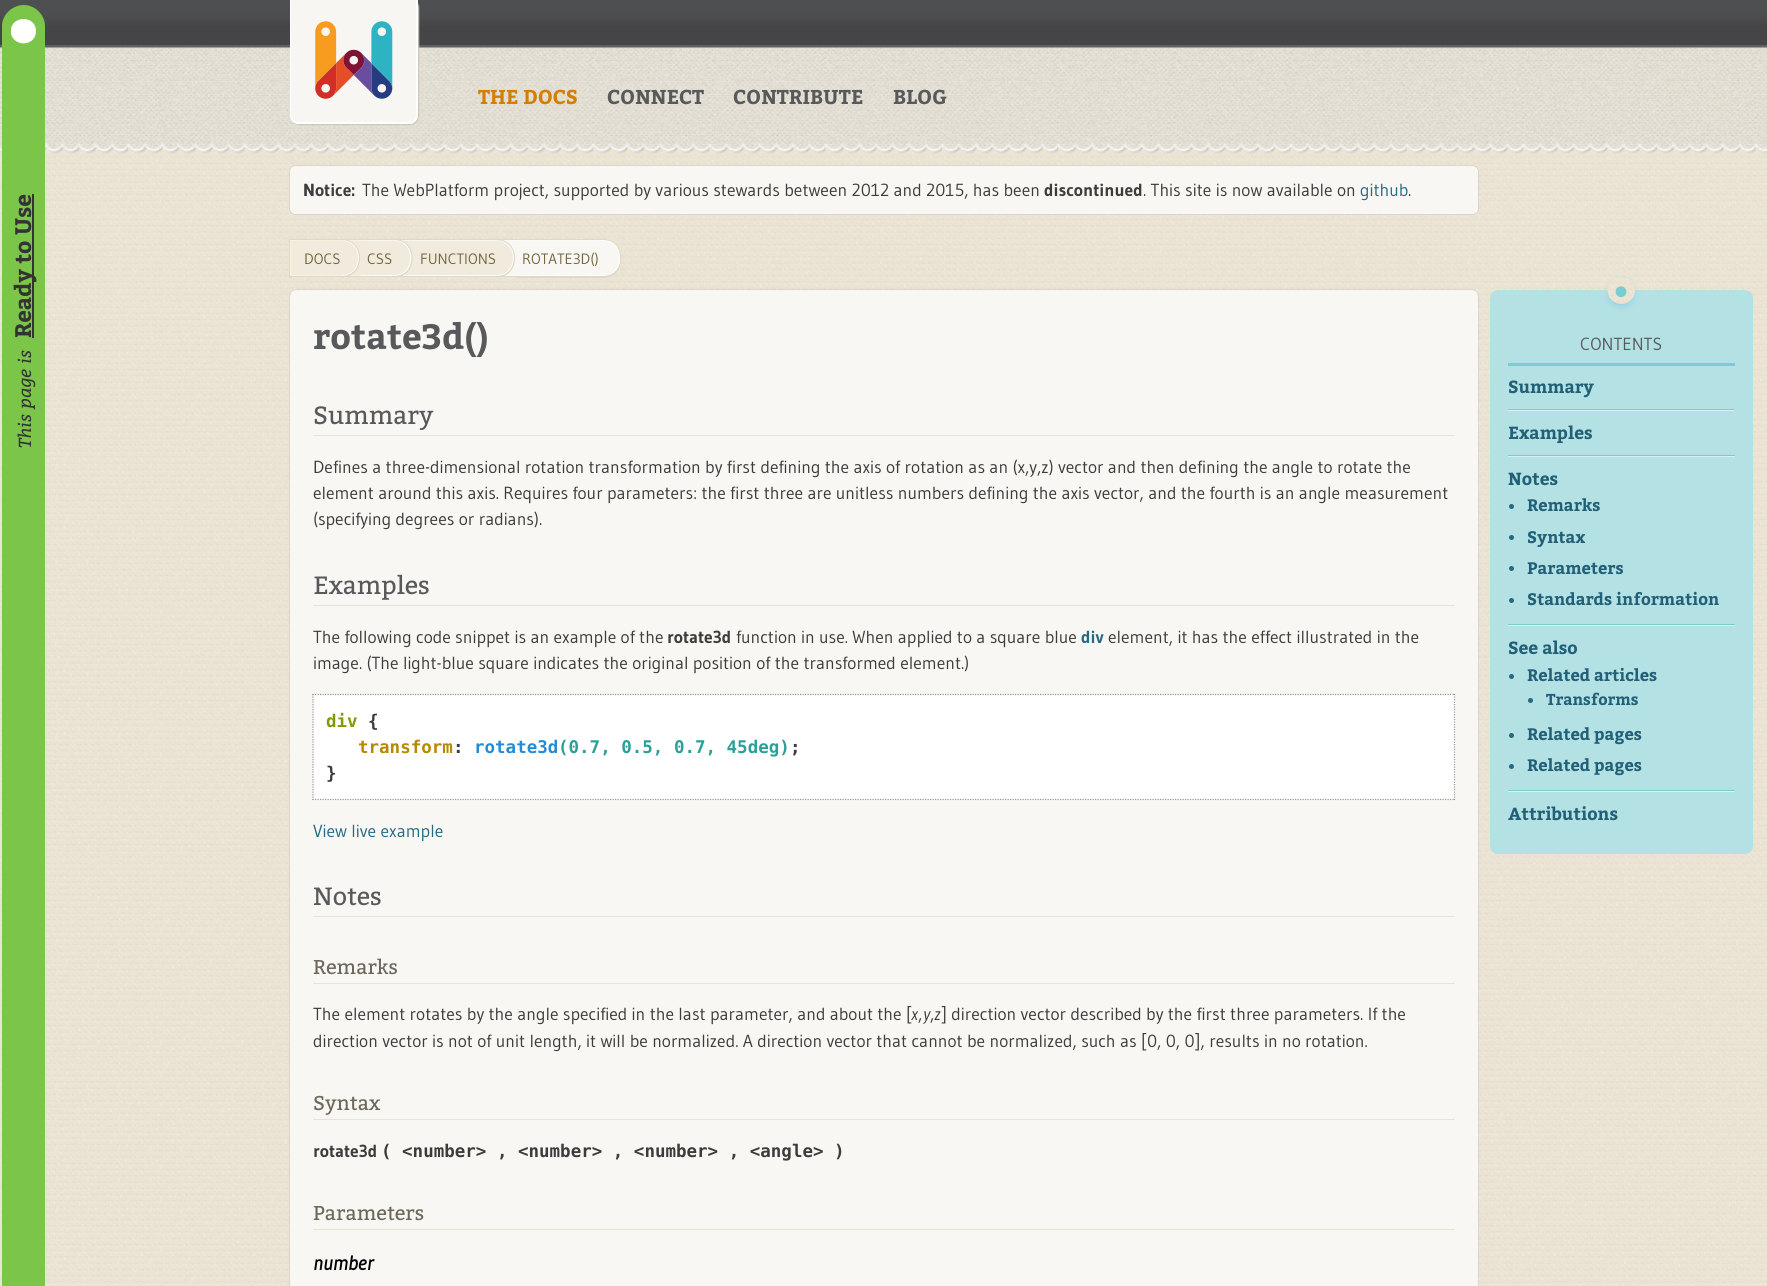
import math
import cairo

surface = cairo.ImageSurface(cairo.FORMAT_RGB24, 1767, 1286)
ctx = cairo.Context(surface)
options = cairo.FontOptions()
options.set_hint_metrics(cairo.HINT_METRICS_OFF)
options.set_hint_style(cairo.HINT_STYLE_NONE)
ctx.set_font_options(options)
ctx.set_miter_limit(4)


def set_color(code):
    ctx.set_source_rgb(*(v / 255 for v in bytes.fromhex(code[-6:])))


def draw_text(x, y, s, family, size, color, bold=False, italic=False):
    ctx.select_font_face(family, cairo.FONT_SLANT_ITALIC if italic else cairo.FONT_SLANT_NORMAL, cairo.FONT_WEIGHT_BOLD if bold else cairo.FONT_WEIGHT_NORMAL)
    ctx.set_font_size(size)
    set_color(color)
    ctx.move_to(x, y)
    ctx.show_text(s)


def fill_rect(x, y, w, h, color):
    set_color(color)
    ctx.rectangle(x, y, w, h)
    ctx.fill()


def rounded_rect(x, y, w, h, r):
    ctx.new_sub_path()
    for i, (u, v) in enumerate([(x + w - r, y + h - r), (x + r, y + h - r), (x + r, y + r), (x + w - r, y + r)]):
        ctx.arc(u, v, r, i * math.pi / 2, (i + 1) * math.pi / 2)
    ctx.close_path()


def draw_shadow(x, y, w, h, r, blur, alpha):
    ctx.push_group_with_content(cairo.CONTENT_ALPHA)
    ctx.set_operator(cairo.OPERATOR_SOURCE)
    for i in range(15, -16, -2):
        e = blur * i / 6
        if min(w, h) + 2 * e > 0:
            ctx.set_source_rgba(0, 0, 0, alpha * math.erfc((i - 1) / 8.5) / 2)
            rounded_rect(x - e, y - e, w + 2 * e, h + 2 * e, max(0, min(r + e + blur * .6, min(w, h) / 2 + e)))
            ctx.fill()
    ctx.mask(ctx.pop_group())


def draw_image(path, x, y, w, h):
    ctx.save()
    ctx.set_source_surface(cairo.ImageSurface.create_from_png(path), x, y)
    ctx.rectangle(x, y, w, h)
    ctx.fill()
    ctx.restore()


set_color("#ffffff")
ctx.paint()
draw_image("assets/img1.png", 0, 154, 1767, 1132)
gradient = cairo.LinearGradient(884, 45, 884, 0)
gradient.add_color_stop_rgba(0.4, 0.271, 0.271, 0.278, 1)
gradient.add_color_stop_rgba(0.7, 0.306, 0.31, 0.314, 1)
ctx.set_source(gradient)
ctx.rectangle(0, 0, 1767, 45)
ctx.fill()
fill_rect(0, 45, 1767, 3, "#606062")
fill_rect(0, 147, 1767, 7, "#ece5d7")
draw_image("assets/img3.png", 0, 47, 1767, 107)
set_color("#cbc6ba")
draw_shadow(291, -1, 128, 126, 9, 0.5, 1)
set_color("#f8f6f2")
ctx.new_path()
ctx.move_to(290, -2)
ctx.line_to(418, -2)
ctx.line_to(418, 115)
ctx.curve_to(418, 120, 414, 124, 409, 124)
ctx.line_to(299, 124)
ctx.curve_to(294, 124, 290, 120, 290, 115)
ctx.close_path()
ctx.fill()
draw_image("assets/img2.png", 315, 21, 78, 78)
set_color("#ffffff")
ctx.set_fill_rule(cairo.FILL_RULE_EVEN_ODD)
ctx.new_path()
ctx.move_to(290, -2)
ctx.line_to(418, -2)
ctx.line_to(418, 115)
ctx.curve_to(418, 120, 414, 124, 409, 124)
ctx.line_to(299, 124)
ctx.curve_to(294, 124, 290, 120, 290, 115)
ctx.close_path()
ctx.move_to(291, -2)
ctx.line_to(416, -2)
ctx.line_to(416, 115)
ctx.curve_to(416, 119, 413, 122, 409, 122)
ctx.line_to(299, 122)
ctx.curve_to(295, 122, 291, 119, 291, 115)
ctx.close_path()
ctx.fill()
draw_text(478, 104, "THE DOCS", "Bitter", 20, "#d37e00", bold=True)
draw_text(607, 104, "CONNECT", "Bitter", 20, "#58595b", bold=True)
draw_text(733, 104, "CONTRIBUTE", "Bitter", 20, "#58595b", bold=True)
draw_text(893, 104, "BLOG", "Bitter", 20, "#58595b", bold=True)
set_color("#a7a9ac")
draw_shadow(290, 166, 1188, 48, 5, 0.5, 1)
set_color("#f9f7f3")
rounded_rect(290, 166, 1188, 48, 5)
ctx.fill()
draw_text(303, 196, "Notice:", "Gudea", 17.5, "#3c3c3c", bold=True)
draw_text(362, 196, "The WebPlatform project, supported by various stewards between 2012 and 2015, has been", "Gudea", 17.5, "#3c3c3c")
draw_text(1044, 196, "discontinued", "Gudea", 17.5, "#3c3c3c", bold=True)
draw_text(1143, 196, ". This site is now available on", "Gudea", 17.5, "#3c3c3c")
draw_text(1360, 196, "github", "Gudea", 17.5, "#256a84")
draw_text(1408, 196, ".", "Gudea", 17.5, "#3c3c3c")
set_color("#7bc649")
ctx.set_fill_rule(cairo.FILL_RULE_WINDING)
ctx.new_path()
ctx.move_to(2, 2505)
ctx.line_to(2, 26)
ctx.curve_to(2, 15, 12, 5, 24, 5)
ctx.curve_to(35, 5, 45, 15, 45, 26)
ctx.line_to(45, 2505)
ctx.close_path()
ctx.fill()
set_color("#ffffff")
ctx.new_path()
ctx.move_to(11, 33.5)
ctx.line_to(11, 28.5)
ctx.curve_to(14, 15, 36, 16, 36, 31)
ctx.curve_to(36, 46.5, 14, 47.5, 11, 33.5)
ctx.close_path()
ctx.fill()
fill_rect(32, 194, 2, 144, "#333333")
ctx.save()
ctx.translate(31, 338)
ctx.rotate(-90 * math.pi / 180)
draw_text(0, 0, "Ready to Use", "Bitter", 22.5, "#333333", bold=True)
ctx.restore()
ctx.save()
ctx.translate(31, 448)
ctx.rotate(-90 * math.pi / 180)
draw_text(0, 0, "This page is", "Bitter", 17.5, "#333333", italic=True)
ctx.restore()
fill_rect(289, 239, 3, 39, "#ded8c9")
fill_rect(291, 241, 123, 34, "#f0ebdd")
fill_rect(290, 240, 1, 36, "#f7f1e0")
fill_rect(290, 275, 73, 1, "#f7f1e0")
fill_rect(290, 240, 73, 1, "#f7f1e0")
fill_rect(290, 239, 228, 1, "#ded8c9")
fill_rect(290, 276, 228, 1, "#ded8c9")
draw_text(304, 264, "DOCS", "Gudea", 15, "#74663e")
set_color("#f0ebdd")
ctx.new_path()
ctx.move_to(341, 240)
ctx.line_to(343, 240)
ctx.curve_to(352, 240, 359, 247, 359, 256)
ctx.line_to(359, 260)
ctx.curve_to(359, 269, 352, 276, 343, 276)
ctx.line_to(341, 276)
ctx.close_path()
ctx.fill()
ctx.set_source_rgba(1, 1, 1, 0.8)
ctx.new_path()
ctx.move_to(341, 240)
ctx.curve_to(363.5, 241, 363.5, 275, 341, 276)
ctx.line_to(343, 276)
ctx.curve_to(352, 276, 359, 269, 359, 260)
ctx.line_to(359, 256)
ctx.curve_to(359, 247, 352, 240, 343, 240)
ctx.close_path()
ctx.fill()
ctx.new_path()
ctx.move_to(341, 275)
ctx.line_to(341, 276)
ctx.line_to(343, 276)
ctx.curve_to(352, 276, 359, 269, 359, 260)
ctx.line_to(359, 256)
ctx.curve_to(359, 253, 358, 250, 356.5, 247.5)
ctx.curve_to(363.5, 259.5, 356, 275, 341, 275)
ctx.close_path()
ctx.fill()
ctx.set_source_rgba(1, 1, 1, 0.5)
ctx.new_path()
ctx.move_to(341, 241)
ctx.curve_to(353.5, 241, 361, 252, 358.5, 263.5)
ctx.line_to(359, 257.5)
ctx.curve_to(359, 246, 352, 240, 341, 240)
ctx.close_path()
ctx.fill()
set_color("#ded8c9")
ctx.set_fill_rule(cairo.FILL_RULE_EVEN_ODD)
ctx.new_path()
ctx.move_to(341, 239)
ctx.curve_to(366.5, 239, 366.5, 277.5, 341, 277.5)
ctx.close_path()
ctx.move_to(341, 240)
ctx.curve_to(365, 240, 365, 276, 341, 276)
ctx.close_path()
ctx.fill()
fill_rect(361, 275, 54, 1, "#fcfbf8")
fill_rect(361, 240, 54, 1, "#f8f5ee")
draw_text(367, 264, "CSS", "Gudea", 15, "#74663e")
set_color("#f0ebdd")
ctx.new_path()
ctx.move_to(394, 240)
ctx.line_to(395, 240)
ctx.curve_to(404, 240, 411, 247, 411, 256)
ctx.line_to(411, 260)
ctx.curve_to(411, 269, 404, 276, 395, 276)
ctx.line_to(394, 276)
ctx.close_path()
ctx.fill()
ctx.set_source_rgba(1, 1, 1, 0.8)
ctx.set_fill_rule(cairo.FILL_RULE_WINDING)
ctx.new_path()
ctx.move_to(394, 240)
ctx.curve_to(415.5, 242, 415.5, 274, 394, 276)
ctx.curve_to(417.5, 276, 416, 240, 395, 240)
ctx.close_path()
ctx.fill()
ctx.new_path()
ctx.move_to(411, 260)
ctx.curve_to(410, 268, 404, 275, 394, 275)
ctx.line_to(394, 276)
ctx.curve_to(403, 276, 411, 270, 411, 260)
ctx.close_path()
ctx.fill()
ctx.set_source_rgba(1, 1, 1, 0.5)
ctx.new_path()
ctx.move_to(394, 241)
ctx.curve_to(404, 241, 410, 248, 411, 256)
ctx.curve_to(411, 246.5, 403.5, 240, 394, 240)
ctx.close_path()
ctx.fill()
set_color("#ded8c9")
ctx.set_fill_rule(cairo.FILL_RULE_EVEN_ODD)
ctx.new_path()
ctx.move_to(394, 239)
ctx.curve_to(419, 239, 419, 277.5, 394, 277.5)
ctx.close_path()
ctx.move_to(394, 240)
ctx.curve_to(417.5, 240, 417.5, 276, 394, 276)
ctx.close_path()
ctx.fill()
fill_rect(414, 240, 89, 36, "#f0ebdd")
fill_rect(503, 240, 13, 36, "#f9f7f3")
ctx.set_source_rgba(1, 1, 1, 0.8)
ctx.rectangle(414, 275, 104, 1)
ctx.fill()
ctx.set_source_rgba(1, 1, 1, 0.5)
ctx.rectangle(414, 240, 104, 1)
ctx.fill()
draw_text(420, 264, "FUNCTIONS", "Gudea", 15, "#74663e")
set_color("#f0ebdd")
ctx.new_path()
ctx.move_to(496, 240)
ctx.line_to(498, 240)
ctx.curve_to(507, 240, 514, 247, 514, 256)
ctx.line_to(514, 260)
ctx.curve_to(514, 269, 507, 276, 498, 276)
ctx.line_to(496, 276)
ctx.close_path()
ctx.fill()
ctx.set_source_rgba(1, 1, 1, 0.8)
ctx.set_fill_rule(cairo.FILL_RULE_WINDING)
ctx.new_path()
ctx.move_to(496, 240)
ctx.curve_to(518.5, 241, 518.5, 275, 496, 276)
ctx.line_to(498, 276)
ctx.curve_to(507, 276, 514, 269, 514, 260)
ctx.line_to(514, 256)
ctx.curve_to(514, 247, 507, 240, 498, 240)
ctx.close_path()
ctx.fill()
ctx.new_path()
ctx.move_to(496, 275)
ctx.line_to(496, 276)
ctx.line_to(498, 276)
ctx.curve_to(507, 276, 514, 269, 514, 260)
ctx.line_to(514, 256)
ctx.curve_to(514, 253, 513, 250, 511.5, 247.5)
ctx.curve_to(518.5, 259.5, 511, 275, 496, 275)
ctx.close_path()
ctx.fill()
ctx.set_source_rgba(1, 1, 1, 0.5)
ctx.new_path()
ctx.move_to(496, 241)
ctx.curve_to(508.5, 241, 516, 252, 513.5, 263.5)
ctx.line_to(514, 257.5)
ctx.curve_to(514, 246, 507, 240, 496, 240)
ctx.close_path()
ctx.fill()
set_color("#ded8c9")
ctx.set_fill_rule(cairo.FILL_RULE_EVEN_ODD)
ctx.new_path()
ctx.move_to(496, 239)
ctx.curve_to(521.5, 239, 521.5, 277.5, 496, 277.5)
ctx.close_path()
ctx.move_to(496, 240)
ctx.curve_to(520, 240, 520, 276, 496, 276)
ctx.close_path()
ctx.fill()
set_color("#f9f7f3")
ctx.new_path()
ctx.move_to(516, 240)
ctx.line_to(604, 240)
ctx.curve_to(613, 240, 620, 247, 620, 256)
ctx.line_to(620, 260)
ctx.curve_to(620, 269, 613, 276, 604, 276)
ctx.line_to(516, 276)
ctx.close_path()
ctx.fill()
set_color("#ffffff")
ctx.set_fill_rule(cairo.FILL_RULE_WINDING)
ctx.new_path()
ctx.move_to(602, 276)
ctx.line_to(604, 276)
ctx.curve_to(613, 276, 620, 269, 620, 260)
ctx.line_to(620, 256)
ctx.curve_to(620, 247, 613, 240, 604, 240)
ctx.line_to(602, 240)
ctx.curve_to(624.5, 240, 625, 276, 602, 276)
ctx.close_path()
ctx.fill()
ctx.set_source_rgba(1, 1, 1, 0.8)
ctx.new_path()
ctx.move_to(516, 275)
ctx.line_to(516, 276)
ctx.line_to(604, 276)
ctx.curve_to(613, 276, 620, 269, 620, 260)
ctx.line_to(620, 258)
ctx.curve_to(620, 268, 613, 275, 603, 275)
ctx.close_path()
ctx.fill()
ctx.set_source_rgba(1, 1, 1, 0.5)
ctx.new_path()
ctx.move_to(516, 241)
ctx.line_to(603, 241)
ctx.curve_to(613, 241, 620, 249, 620, 258)
ctx.line_to(620, 256)
ctx.curve_to(620, 247, 613, 240, 604, 240)
ctx.line_to(516, 240)
ctx.close_path()
ctx.fill()
set_color("#ded8c9")
ctx.set_fill_rule(cairo.FILL_RULE_EVEN_ODD)
ctx.new_path()
ctx.move_to(516, 239)
ctx.line_to(603, 239)
ctx.curve_to(613, 239, 621, 247, 621, 257)
ctx.line_to(621, 260)
ctx.curve_to(621, 270, 613, 278, 603, 278)
ctx.line_to(516, 278)
ctx.close_path()
ctx.move_to(516, 240)
ctx.line_to(603, 240)
ctx.curve_to(613, 240, 620, 247, 620, 257)
ctx.line_to(620, 260)
ctx.curve_to(620, 269, 613, 276, 603, 276)
ctx.line_to(516, 276)
ctx.close_path()
ctx.fill()
draw_text(522, 264, "ROTATE3D()", "Gudea", 15, "#74663e")
set_color("#a7a9ac")
draw_shadow(290, 290, 1188, 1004, 6, 0.5, 1)
set_color("#f9f7f3")
rounded_rect(290, 290, 1188, 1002, 6)
ctx.fill()
draw_text(313, 349, "rotate3d()", "Bitter", 35, "#58595b", bold=True)
fill_rect(313, 435, 1142, 1, "#e2e3e4")
draw_text(313, 424, "Summary", "Bitter", 25, "#58595b")
draw_text(313, 473, "Defines a three-dimensional rotation transformation by first defining the axis of rotation as an (x,y,z) vector and then defining the angle to rotate the", "Gudea", 17.5, "#3c3c3c")
draw_text(313, 499, "element around this axis. Requires four parameters: the first three are unitless numbers defining the axis vector, and the fourth is an angle measurement", "Gudea", 17.5, "#3c3c3c")
draw_text(313, 525, "(specifying degrees or radians).", "Gudea", 17.5, "#3c3c3c")
fill_rect(313, 605, 1142, 1, "#e2e3e4")
draw_text(313, 594, "Examples", "Bitter", 25, "#58595b")
draw_text(313, 643, "The following code snippet is an example of the", "Gudea", 17.5, "#3c3c3c")
draw_text(667, 643, "rotate3d", "Gudea", 17.5, "#3c3c3c", bold=True)
draw_text(736, 643, "function in use. When applied to a square blue", "Gudea", 17.5, "#3c3c3c")
draw_text(1081, 643, "div", "Gudea", 17.5, "#256a84", bold=True)
draw_text(1108, 643, "element, it has the effect illustrated in the", "Gudea", 17.5, "#3c3c3c")
draw_text(313, 669, "image. (The light-blue square indicates the original position of the transformed element.)", "Gudea", 17.5, "#3c3c3c")
fill_rect(313, 694, 1142, 106, "#ffffff")
ctx.new_path()
ctx.move_to(312.5, 694.5)
ctx.line_to(1455, 694.5)
set_color("#9b9689")
ctx.set_line_width(1.2)
ctx.set_dash([1.25, 1.25])
ctx.stroke()
ctx.new_path()
ctx.move_to(1454.5, 694)
ctx.line_to(1454.5, 800)
ctx.stroke()
ctx.new_path()
ctx.move_to(312.5, 799.5)
ctx.line_to(1455, 799.5)
ctx.stroke()
ctx.new_path()
ctx.move_to(313, 694)
ctx.line_to(313, 800)
ctx.stroke()
draw_text(326, 727, "div", "DejaVu Sans Mono", 17.5, "#859900", bold=True)
draw_text(368, 727, "{", "DejaVu Sans Mono", 17.5, "#3c3c3c", bold=True)
draw_text(358, 753, "transform", "DejaVu Sans Mono", 17.5, "#b58900", bold=True)
draw_text(453, 753, ":", "DejaVu Sans Mono", 17.5, "#3c3c3c", bold=True)
draw_text(474, 753, "rotate3d", "DejaVu Sans Mono", 17.5, "#268bd2", bold=True)
draw_text(558, 753, "(0.7, 0.5, 0.7, 45deg)", "DejaVu Sans Mono", 17.5, "#2aa198", bold=True)
draw_text(790, 753, ";", "DejaVu Sans Mono", 17.5, "#3c3c3c", bold=True)
draw_text(326, 779, "}", "DejaVu Sans Mono", 17.5, "#3c3c3c", bold=True)
draw_text(313, 837, "View live example", "Gudea", 17.5, "#256a84")
fill_rect(313, 916, 1142, 1, "#e2e3e4")
draw_text(313, 905, "Notes", "Bitter", 25, "#58595b")
fill_rect(313, 983, 1142, 1, "#eae3d3")
draw_text(313, 974, "Remarks", "Bitter", 20, "#6d685b")
draw_text(313, 1020, "The element rotates by the angle specified in the last parameter, and about the [", "Gudea", 17.5, "#3c3c3c")
draw_text(911, 1020, "x", "Gudea", 17.5, "#3c3c3c", italic=True)
draw_text(923, 1020, "y", "Gudea", 17.5, "#3c3c3c", italic=True)
draw_text(934, 1020, "z", "Gudea", 17.5, "#3c3c3c", italic=True)
draw_text(941, 1020, "] direction vector described by the first three parameters. If the", "Gudea", 17.5, "#3c3c3c")
draw_text(918, 1020, ",", "Gudea", 17.5, "#3c3c3c")
draw_text(930, 1020, ",", "Gudea", 17.5, "#3c3c3c")
draw_text(313, 1047, "direction vector is not of unit length, it will be normalized. A direction vector that cannot be normalized, such as [0, 0, 0], results in no rotation.", "Gudea", 17.5, "#3c3c3c")
fill_rect(313, 1119, 1142, 1, "#eae3d3")
draw_text(313, 1110, "Syntax", "Bitter", 20, "#6d685b")
draw_text(313, 1157, "rotate3d", "Gudea", 17.5, "#3c3c3c", bold=True)
draw_text(381, 1157, "( <number> , <number> , <number> , <angle> )", "DejaVu Sans Mono", 17.5, "#3c3c3c", bold=True)
fill_rect(313, 1229, 1142, 1, "#eae3d3")
draw_text(313, 1220, "Parameters", "Bitter", 20, "#6d685b")
draw_text(313, 1270, "number", "Gudea", 20, "#000000", bold=True, italic=True)
set_color("#b4e1e4")
rounded_rect(1490, 290, 263, 564, 8)
ctx.fill()
set_color("#81c7e1")
draw_shadow(1611, 284, 20, 20, 10, 4.5, 1)
set_color("#b4e1e4")
rounded_rect(1608, 276, 27, 28, 13.5)
ctx.fill()
draw_image("assets/img4.png", 1607, 276, 28, 28)
draw_text(1614, 305, "•", "Liberation Sans", 40, "#7bccd1")
fill_rect(1508, 363, 227, 3, "#7bccd1")
draw_text(1580, 350, "CONTENTS", "Gudea", 17.5, "#58595b")
fill_rect(1508, 409, 227, 1, "#7bccd1")
draw_text(1508, 393, "Summary", "Bitter", 17.5, "#226077", bold=True)
fill_rect(1508, 410, 227, 1, "#daf0f2")
fill_rect(1508, 455, 227, 1, "#7bccd1")
draw_text(1508, 439, "Examples", "Bitter", 17.5, "#226077", bold=True)
fill_rect(1508, 456, 227, 1, "#daf0f2")
fill_rect(1508, 624, 227, 1, "#7bccd1")
draw_text(1508, 485, "Notes", "Bitter", 17.5, "#226077", bold=True)
set_color("#256a83")
ctx.new_path()
ctx.arc(1511.5, 506.5, 2.5, 0, 2 * math.pi)
ctx.fill()
draw_text(1527, 511, "Remarks", "Bitter", 16.6, "#226077", bold=True)
set_color("#256a83")
ctx.new_path()
ctx.arc(1511.5, 537.5, 2.5, 0, 2 * math.pi)
ctx.fill()
draw_text(1527, 543, "Syntax", "Bitter", 16.6, "#226077", bold=True)
set_color("#256a83")
ctx.new_path()
ctx.arc(1511.5, 568.5, 2.5, 0, 2 * math.pi)
ctx.fill()
draw_text(1527, 574, "Parameters", "Bitter", 16.6, "#226077", bold=True)
set_color("#256a83")
ctx.new_path()
ctx.arc(1511.5, 600.5, 2.5, 0, 2 * math.pi)
ctx.fill()
draw_text(1527, 605, "Standards information", "Bitter", 16.6, "#226077", bold=True)
fill_rect(1508, 625, 227, 1, "#daf0f2")
fill_rect(1508, 790, 227, 1, "#7bccd1")
draw_text(1508, 654, "See also", "Bitter", 17.5, "#226077", bold=True)
set_color("#256a83")
ctx.new_path()
ctx.arc(1511.5, 676.5, 2.5, 0, 2 * math.pi)
ctx.fill()
draw_text(1527, 681, "Related articles", "Bitter", 16.6, "#226077", bold=True)
set_color("#256a83")
ctx.new_path()
ctx.arc(1530.5, 700.5, 2.5, 0, 2 * math.pi)
ctx.fill()
draw_text(1546, 705, "Transforms", "Bitter", 15.75, "#226077", bold=True)
set_color("#256a83")
ctx.new_path()
ctx.arc(1511.5, 735.5, 2.5, 0, 2 * math.pi)
ctx.fill()
draw_text(1527, 740, "Related pages", "Bitter", 16.6, "#226077", bold=True)
set_color("#256a83")
ctx.new_path()
ctx.arc(1511.5, 766.5, 2.5, 0, 2 * math.pi)
ctx.fill()
draw_text(1527, 771, "Related pages", "Bitter", 16.6, "#226077", bold=True)
fill_rect(1508, 791, 227, 1, "#daf0f2")
draw_text(1508, 820, "Attributions", "Bitter", 17.5, "#226077", bold=True)
surface.write_to_png("output.png")
